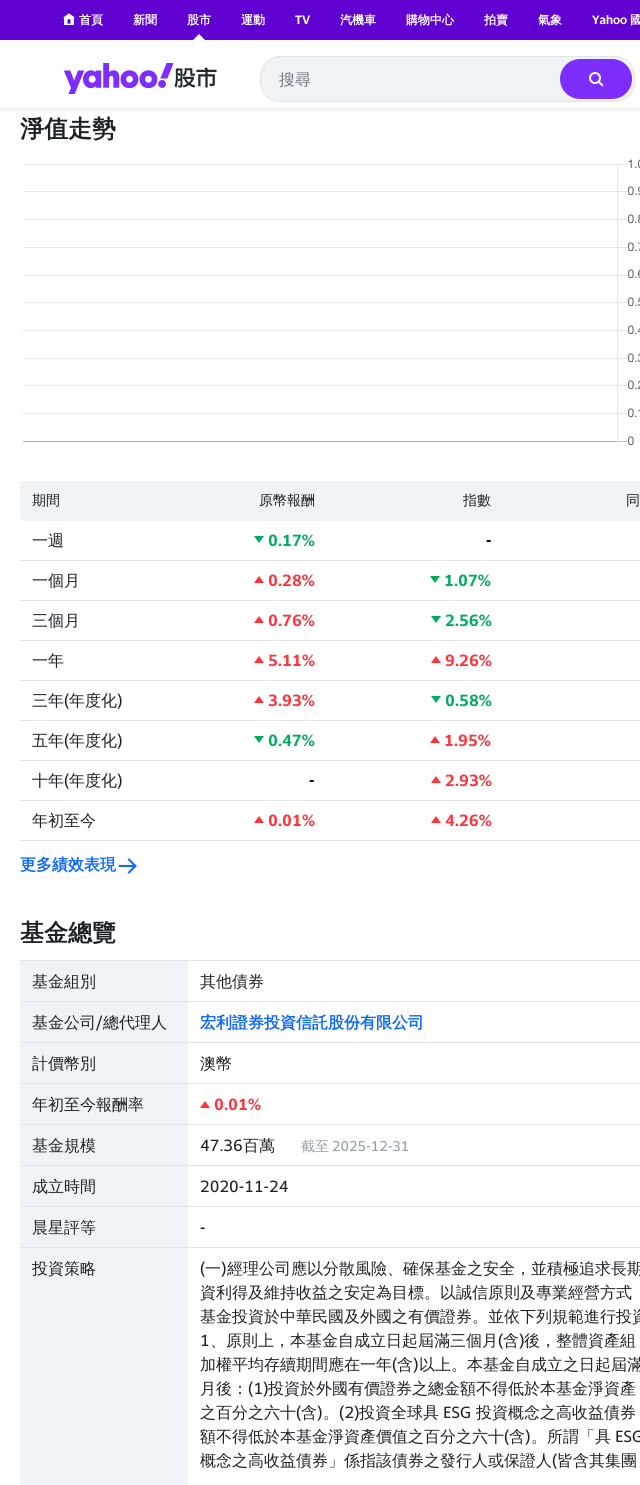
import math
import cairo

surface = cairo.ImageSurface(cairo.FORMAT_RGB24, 640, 1485)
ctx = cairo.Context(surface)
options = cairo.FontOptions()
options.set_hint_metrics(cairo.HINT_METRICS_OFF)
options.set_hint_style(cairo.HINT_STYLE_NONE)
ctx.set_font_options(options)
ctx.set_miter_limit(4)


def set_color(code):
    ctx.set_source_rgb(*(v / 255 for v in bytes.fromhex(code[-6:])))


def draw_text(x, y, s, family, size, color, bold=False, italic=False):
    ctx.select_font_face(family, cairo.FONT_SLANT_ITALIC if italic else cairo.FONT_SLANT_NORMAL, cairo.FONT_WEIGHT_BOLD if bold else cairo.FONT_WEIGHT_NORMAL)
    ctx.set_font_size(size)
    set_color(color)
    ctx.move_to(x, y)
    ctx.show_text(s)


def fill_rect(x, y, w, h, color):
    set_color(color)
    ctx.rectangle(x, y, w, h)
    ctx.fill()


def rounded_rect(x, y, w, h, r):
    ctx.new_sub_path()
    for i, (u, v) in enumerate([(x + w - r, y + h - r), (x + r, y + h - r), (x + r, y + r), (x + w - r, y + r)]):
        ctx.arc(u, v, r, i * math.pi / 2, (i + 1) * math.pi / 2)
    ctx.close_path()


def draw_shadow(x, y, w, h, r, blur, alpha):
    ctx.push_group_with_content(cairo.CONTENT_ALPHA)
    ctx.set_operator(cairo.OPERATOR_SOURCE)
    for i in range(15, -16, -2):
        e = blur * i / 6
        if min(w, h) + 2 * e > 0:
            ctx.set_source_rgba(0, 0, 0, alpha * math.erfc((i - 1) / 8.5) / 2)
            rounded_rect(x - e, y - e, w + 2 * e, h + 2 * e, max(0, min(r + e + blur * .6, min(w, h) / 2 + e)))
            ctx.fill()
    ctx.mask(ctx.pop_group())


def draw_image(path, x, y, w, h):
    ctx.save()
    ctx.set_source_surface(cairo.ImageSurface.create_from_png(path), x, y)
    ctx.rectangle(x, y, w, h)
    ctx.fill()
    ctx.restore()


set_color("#ffffff")
ctx.paint()
set_color("#000000")
draw_shadow(0, 6, 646, 104, 0, 2, 0.08)
fill_rect(0, 0, 640, 40, "#6001d2")
draw_image("assets/img1.png", 63, 13, 12, 12)
draw_text(79, 24, "首頁", "WenQuanYi Zen Hei", 12, "#ffffff", bold=True)
draw_text(133, 24, "新聞", "WenQuanYi Zen Hei", 12, "#ffffff", bold=True)
draw_text(187, 24, "股市", "WenQuanYi Zen Hei", 12, "#ffffff", bold=True)
ctx.new_path()
ctx.move_to(199, 34)
ctx.line_to(205, 40)
ctx.line_to(193, 40)
ctx.close_path()
ctx.fill()
draw_text(241, 24, "運動", "WenQuanYi Zen Hei", 12, "#ffffff", bold=True)
draw_text(295, 24, "TV", "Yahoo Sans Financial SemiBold", 12, "#ffffff")
draw_text(340, 24, "汽機車", "WenQuanYi Zen Hei", 12, "#ffffff", bold=True)
draw_text(406, 24, "購物中心", "WenQuanYi Zen Hei", 12, "#ffffff", bold=True)
draw_text(484, 24, "拍賣", "WenQuanYi Zen Hei", 12, "#ffffff", bold=True)
draw_text(538, 24, "氣象", "WenQuanYi Zen Hei", 12, "#ffffff", bold=True)
draw_text(592, 24, "Yahoo", "Yahoo Sans Financial SemiBold", 12, "#ffffff")
draw_text(630, 24, "國", "WenQuanYi Zen Hei", 12, "#ffffff", bold=True)
fill_rect(0, 40, 640, 68, "#ffffff")
draw_image("assets/img2.png", 63, 63, 154, 31)
set_color("#f0f3f5")
rounded_rect(260.5, 56.5, 374, 45, 19.5)
ctx.fill_preserve()
set_color("#e0e4e9")
ctx.set_line_width(1)
ctx.stroke()
draw_text(279, 85, "搜尋", "WenQuanYi Zen Hei Medium", 16, "#6e7780")
set_color("#7d2eff")
rounded_rect(560, 59, 72, 40, 20)
ctx.fill()
draw_image("assets/img3.png", 589, 72, 15, 15)
draw_text(20, 137, "淨值走勢", "WenQuanYi Zen Hei", 24, "#1d2228", bold=True)
draw_image("assets/img4.png", 23, 159, 617, 287)
set_color("#f0f3f5")
rounded_rect(20, 481, 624, 40, 4)
ctx.fill()
draw_text(32, 505, "期間", "WenQuanYi Zen Hei Medium", 14, "#1d2228")
draw_text(259, 505, "原幣報酬", "WenQuanYi Zen Hei Medium", 14, "#1d2228")
draw_text(463, 505, "指數", "WenQuanYi Zen Hei Medium", 14, "#1d2228")
draw_text(626, 505, "同", "WenQuanYi Zen Hei Medium", 14, "#1d2228")
fill_rect(20, 560, 620, 1, "#e0e4e9")
draw_text(32, 546, "一週", "WenQuanYi Zen Hei Medium", 16, "#1d2228")
set_color("#00ab5e")
ctx.new_path()
ctx.move_to(254, 536)
ctx.line_to(264, 536)
ctx.line_to(259, 543)
ctx.close_path()
ctx.fill()
draw_text(268, 546, "0.17%", "Yahoo Sans Financial SemiBold", 16, "#00ab5e")
draw_text(486, 546, "-", "Yahoo Sans Financial SemiBold", 16, "#000000")
fill_rect(20, 600, 620, 1, "#e0e4e9")
draw_text(32, 586, "一個月", "WenQuanYi Zen Hei Medium", 16, "#1d2228")
set_color("#ff333a")
ctx.new_path()
ctx.move_to(264, 583)
ctx.line_to(254, 583)
ctx.line_to(259, 576)
ctx.close_path()
ctx.fill()
draw_text(268, 586, "0.28%", "Yahoo Sans Financial SemiBold", 16, "#ff333a")
set_color("#00ab5e")
ctx.new_path()
ctx.move_to(430, 576)
ctx.line_to(440, 576)
ctx.line_to(435, 583)
ctx.close_path()
ctx.fill()
draw_text(444, 586, "1.07%", "Yahoo Sans Financial SemiBold", 16, "#00ab5e")
fill_rect(20, 640, 620, 1, "#e0e4e9")
draw_text(32, 626, "三個月", "WenQuanYi Zen Hei Medium", 16, "#1d2228")
set_color("#ff333a")
ctx.new_path()
ctx.move_to(264, 623)
ctx.line_to(254, 623)
ctx.line_to(259, 616)
ctx.close_path()
ctx.fill()
draw_text(268, 626, "0.76%", "Yahoo Sans Financial SemiBold", 16, "#ff333a")
set_color("#00ab5e")
ctx.new_path()
ctx.move_to(431, 616)
ctx.line_to(441, 616)
ctx.line_to(436, 623)
ctx.close_path()
ctx.fill()
draw_text(445, 626, "2.56%", "Yahoo Sans Financial SemiBold", 16, "#00ab5e")
fill_rect(20, 680, 620, 1, "#e0e4e9")
draw_text(32, 666, "一年", "WenQuanYi Zen Hei Medium", 16, "#1d2228")
set_color("#ff333a")
ctx.new_path()
ctx.move_to(264, 663)
ctx.line_to(254, 663)
ctx.line_to(259, 656)
ctx.close_path()
ctx.fill()
draw_text(268, 666, "5.11%", "Yahoo Sans Financial SemiBold", 16, "#ff333a")
ctx.new_path()
ctx.move_to(441, 663)
ctx.line_to(431, 663)
ctx.line_to(436, 656)
ctx.close_path()
ctx.fill()
draw_text(445, 666, "9.26%", "Yahoo Sans Financial SemiBold", 16, "#ff333a")
fill_rect(20, 720, 620, 1, "#e0e4e9")
draw_text(32, 706, "三年", "WenQuanYi Zen Hei Medium", 16, "#1d2228")
draw_text(64, 706, "(", "Yahoo Sans Financial", 16, "#1d2228")
draw_text(69, 706, "年度化", "WenQuanYi Zen Hei Medium", 16, "#1d2228")
draw_text(117, 706, ")", "Yahoo Sans Financial", 16, "#1d2228")
set_color("#ff333a")
ctx.new_path()
ctx.move_to(264, 703)
ctx.line_to(254, 703)
ctx.line_to(259, 696)
ctx.close_path()
ctx.fill()
draw_text(268, 706, "3.93%", "Yahoo Sans Financial SemiBold", 16, "#ff333a")
set_color("#00ab5e")
ctx.new_path()
ctx.move_to(431, 696)
ctx.line_to(441, 696)
ctx.line_to(436, 703)
ctx.close_path()
ctx.fill()
draw_text(445, 706, "0.58%", "Yahoo Sans Financial SemiBold", 16, "#00ab5e")
fill_rect(20, 760, 620, 1, "#e0e4e9")
draw_text(32, 746, "五年", "WenQuanYi Zen Hei Medium", 16, "#1d2228")
draw_text(64, 746, "(", "Yahoo Sans Financial", 16, "#1d2228")
draw_text(69, 746, "年度化", "WenQuanYi Zen Hei Medium", 16, "#1d2228")
draw_text(117, 746, ")", "Yahoo Sans Financial", 16, "#1d2228")
set_color("#00ab5e")
ctx.new_path()
ctx.move_to(254, 736)
ctx.line_to(264, 736)
ctx.line_to(259, 743)
ctx.close_path()
ctx.fill()
draw_text(268, 746, "0.47%", "Yahoo Sans Financial SemiBold", 16, "#00ab5e")
set_color("#ff333a")
ctx.new_path()
ctx.move_to(440, 743)
ctx.line_to(430, 743)
ctx.line_to(435, 736)
ctx.close_path()
ctx.fill()
draw_text(444, 746, "1.95%", "Yahoo Sans Financial SemiBold", 16, "#ff333a")
fill_rect(20, 800, 620, 1, "#e0e4e9")
draw_text(32, 786, "十年", "WenQuanYi Zen Hei Medium", 16, "#1d2228")
draw_text(64, 786, "(", "Yahoo Sans Financial", 16, "#1d2228")
draw_text(69, 786, "年度化", "WenQuanYi Zen Hei Medium", 16, "#1d2228")
draw_text(117, 786, ")", "Yahoo Sans Financial", 16, "#1d2228")
draw_text(309, 786, "-", "Yahoo Sans Financial SemiBold", 16, "#000000")
set_color("#ff333a")
ctx.new_path()
ctx.move_to(441, 783)
ctx.line_to(431, 783)
ctx.line_to(436, 776)
ctx.close_path()
ctx.fill()
draw_text(445, 786, "2.93%", "Yahoo Sans Financial SemiBold", 16, "#ff333a")
fill_rect(20, 840, 620, 1, "#e0e4e9")
draw_text(32, 826, "年初至今", "WenQuanYi Zen Hei Medium", 16, "#1d2228")
set_color("#ff333a")
ctx.new_path()
ctx.move_to(264, 823)
ctx.line_to(254, 823)
ctx.line_to(259, 816)
ctx.close_path()
ctx.fill()
draw_text(268, 826, "0.01%", "Yahoo Sans Financial SemiBold", 16, "#ff333a")
ctx.new_path()
ctx.move_to(441, 823)
ctx.line_to(431, 823)
ctx.line_to(436, 816)
ctx.close_path()
ctx.fill()
draw_text(445, 826, "4.26%", "Yahoo Sans Financial SemiBold", 16, "#ff333a")
draw_text(20, 870, "更多績效表現", "WenQuanYi Zen Hei", 16, "#0f69ff", bold=True)
draw_image("assets/img5.png", 118, 858, 19, 16)
draw_text(20, 941, "基金總覽", "WenQuanYi Zen Hei", 24, "#1d2228", bold=True)
fill_rect(20, 960, 620, 1, "#e0e4e9")
fill_rect(20, 1001, 620, 1, "#e0e4e9")
fill_rect(20, 961, 168, 40, "#f0f3f5")
draw_text(32, 987, "基金組別", "WenQuanYi Zen Hei Medium", 16, "#1d2228")
draw_text(200, 987, "其他債券", "WenQuanYi Zen Hei Medium", 16, "#1d2228")
fill_rect(20, 1042, 620, 1, "#e0e4e9")
fill_rect(20, 1002, 168, 40, "#f0f3f5")
draw_text(32, 1028, "基金公司", "WenQuanYi Zen Hei Medium", 16, "#1d2228")
draw_text(96, 1028, "/", "Yahoo Sans Financial", 16, "#1d2228")
draw_text(103, 1028, "總代理人", "WenQuanYi Zen Hei Medium", 16, "#1d2228")
draw_text(200, 1028, "宏利證券投資信託股份有限公司", "WenQuanYi Zen Hei", 16, "#0f69ff", bold=True)
fill_rect(20, 1083, 620, 1, "#e0e4e9")
fill_rect(20, 1043, 168, 40, "#f0f3f5")
draw_text(32, 1069, "計價幣別", "WenQuanYi Zen Hei Medium", 16, "#1d2228")
draw_text(200, 1069, "澳幣", "WenQuanYi Zen Hei Medium", 16, "#1d2228")
fill_rect(20, 1124, 620, 1, "#e0e4e9")
fill_rect(20, 1084, 168, 40, "#f0f3f5")
draw_text(32, 1110, "年初至今報酬率", "WenQuanYi Zen Hei Medium", 16, "#1d2228")
set_color("#ff333a")
ctx.new_path()
ctx.move_to(210, 1108)
ctx.line_to(200, 1108)
ctx.line_to(205, 1101)
ctx.close_path()
ctx.fill()
draw_text(214, 1110, "0.01%", "Yahoo Sans Financial SemiBold", 16, "#ff333a")
fill_rect(20, 1165, 620, 1, "#e0e4e9")
fill_rect(20, 1125, 168, 40, "#f0f3f5")
draw_text(32, 1151, "基金規模", "WenQuanYi Zen Hei Medium", 16, "#1d2228")
draw_text(200, 1151, "47.36", "Yahoo Sans Financial", 16, "#1d2228")
draw_text(243, 1151, "百萬", "WenQuanYi Zen Hei Medium", 16, "#1d2228")
draw_text(301, 1151, "截至", "WenQuanYi Zen Hei Medium", 14, "#979ea8")
draw_text(332, 1151, "2025-12-31", "Yahoo Sans Financial", 14, "#979ea8")
fill_rect(20, 1206, 620, 1, "#e0e4e9")
fill_rect(20, 1166, 168, 40, "#f0f3f5")
draw_text(32, 1192, "成立時間", "WenQuanYi Zen Hei Medium", 16, "#1d2228")
draw_text(200, 1192, "2020-11-24", "Yahoo Sans Financial", 16, "#1d2228")
fill_rect(20, 1247, 620, 1, "#e0e4e9")
fill_rect(20, 1207, 168, 40, "#f0f3f5")
draw_text(32, 1233, "晨星評等", "WenQuanYi Zen Hei Medium", 16, "#1d2228")
draw_text(200, 1233, "-", "Yahoo Sans Financial", 16, "#000000")
fill_rect(20, 1248, 168, 237, "#f0f3f5")
draw_text(32, 1274, "投資策略", "WenQuanYi Zen Hei Medium", 16, "#1d2228")
draw_text(200, 1274, "(", "Yahoo Sans Financial", 16, "#1d2228")
draw_text(205, 1274, "一", "WenQuanYi Zen Hei Medium", 16, "#1d2228")
draw_text(221, 1274, ")", "Yahoo Sans Financial", 16, "#1d2228")
draw_text(227, 1274, "經理公司應以分散風險、確保基金之安全，並積極追求長期", "WenQuanYi Zen Hei Medium", 16, "#1d2228")
draw_text(200, 1298, "資利得及維持收益之安定為目標。以誠信原則及專業經營方式", "WenQuanYi Zen Hei Medium", 16, "#1d2228")
draw_text(200, 1322, "基金投資於中華民國及外國之有價證券。並依下列規範進行投資", "WenQuanYi Zen Hei Medium", 16, "#1d2228")
draw_text(200, 1346, "1", "Yahoo Sans Financial", 16, "#1d2228")
draw_text(210, 1346, "、原則上，本基金自成立日起屆滿三個月", "WenQuanYi Zen Hei Medium", 16, "#1d2228")
draw_text(498, 1346, "(", "Yahoo Sans Financial", 16, "#1d2228")
draw_text(503, 1346, "含", "WenQuanYi Zen Hei Medium", 16, "#1d2228")
draw_text(519, 1346, ")", "Yahoo Sans Financial", 16, "#1d2228")
draw_text(524, 1346, "後，整體資產組", "WenQuanYi Zen Hei Medium", 16, "#1d2228")
draw_text(200, 1370, "加權平均存續期間應在一年", "WenQuanYi Zen Hei Medium", 16, "#1d2228")
draw_text(392, 1370, "(", "Yahoo Sans Financial", 16, "#1d2228")
draw_text(397, 1370, "含", "WenQuanYi Zen Hei Medium", 16, "#1d2228")
draw_text(413, 1370, ")", "Yahoo Sans Financial", 16, "#1d2228")
draw_text(419, 1370, "以上。本基金自成立之日起屆滿", "WenQuanYi Zen Hei Medium", 16, "#1d2228")
draw_text(200, 1394, "月後：", "WenQuanYi Zen Hei Medium", 16, "#1d2228")
draw_text(248, 1394, "(1)", "Yahoo Sans Financial", 16, "#1d2228")
draw_text(268, 1394, "投資於外國有價證券之總金額不得低於本基金淨資產", "WenQuanYi Zen Hei Medium", 16, "#1d2228")
draw_text(200, 1418, "之百分之六十", "WenQuanYi Zen Hei Medium", 16, "#1d2228")
draw_text(296, 1418, "(", "Yahoo Sans Financial", 16, "#1d2228")
draw_text(301, 1418, "含", "WenQuanYi Zen Hei Medium", 16, "#1d2228")
draw_text(317, 1418, ")", "Yahoo Sans Financial", 16, "#1d2228")
draw_text(323, 1418, "。", "WenQuanYi Zen Hei Medium", 16, "#1d2228")
draw_text(339, 1418, "(2)", "Yahoo Sans Financial", 16, "#1d2228")
draw_text(359, 1418, "投資全球具", "WenQuanYi Zen Hei Medium", 16, "#1d2228")
draw_text(443, 1418, "ESG", "Yahoo Sans Financial", 16, "#1d2228")
draw_text(476, 1418, "投資概念之高收益債券", "WenQuanYi Zen Hei Medium", 16, "#1d2228")
draw_text(200, 1442, "額不得低於本基金淨資產價值之百分之六十", "WenQuanYi Zen Hei Medium", 16, "#1d2228")
draw_text(504, 1442, "(", "Yahoo Sans Financial", 16, "#1d2228")
draw_text(509, 1442, "含", "WenQuanYi Zen Hei Medium", 16, "#1d2228")
draw_text(525, 1442, ")", "Yahoo Sans Financial", 16, "#1d2228")
draw_text(531, 1442, "。所謂「具", "WenQuanYi Zen Hei Medium", 16, "#1d2228")
draw_text(615, 1442, "ESG", "Yahoo Sans Financial", 16, "#1d2228")
draw_text(200, 1466, "概念之高收益債券」係指該債券之發行人或保證人", "WenQuanYi Zen Hei Medium", 16, "#1d2228")
draw_text(552, 1466, "(", "Yahoo Sans Financial", 16, "#1d2228")
draw_text(557, 1466, "皆含其集團", "WenQuanYi Zen Hei Medium", 16, "#1d2228")
surface.write_to_png("output.png")
